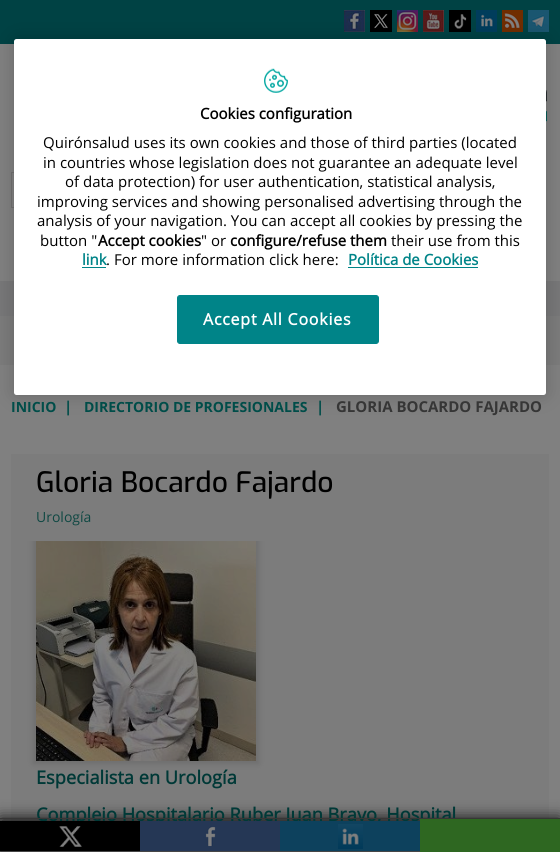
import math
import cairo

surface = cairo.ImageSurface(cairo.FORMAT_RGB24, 560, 852)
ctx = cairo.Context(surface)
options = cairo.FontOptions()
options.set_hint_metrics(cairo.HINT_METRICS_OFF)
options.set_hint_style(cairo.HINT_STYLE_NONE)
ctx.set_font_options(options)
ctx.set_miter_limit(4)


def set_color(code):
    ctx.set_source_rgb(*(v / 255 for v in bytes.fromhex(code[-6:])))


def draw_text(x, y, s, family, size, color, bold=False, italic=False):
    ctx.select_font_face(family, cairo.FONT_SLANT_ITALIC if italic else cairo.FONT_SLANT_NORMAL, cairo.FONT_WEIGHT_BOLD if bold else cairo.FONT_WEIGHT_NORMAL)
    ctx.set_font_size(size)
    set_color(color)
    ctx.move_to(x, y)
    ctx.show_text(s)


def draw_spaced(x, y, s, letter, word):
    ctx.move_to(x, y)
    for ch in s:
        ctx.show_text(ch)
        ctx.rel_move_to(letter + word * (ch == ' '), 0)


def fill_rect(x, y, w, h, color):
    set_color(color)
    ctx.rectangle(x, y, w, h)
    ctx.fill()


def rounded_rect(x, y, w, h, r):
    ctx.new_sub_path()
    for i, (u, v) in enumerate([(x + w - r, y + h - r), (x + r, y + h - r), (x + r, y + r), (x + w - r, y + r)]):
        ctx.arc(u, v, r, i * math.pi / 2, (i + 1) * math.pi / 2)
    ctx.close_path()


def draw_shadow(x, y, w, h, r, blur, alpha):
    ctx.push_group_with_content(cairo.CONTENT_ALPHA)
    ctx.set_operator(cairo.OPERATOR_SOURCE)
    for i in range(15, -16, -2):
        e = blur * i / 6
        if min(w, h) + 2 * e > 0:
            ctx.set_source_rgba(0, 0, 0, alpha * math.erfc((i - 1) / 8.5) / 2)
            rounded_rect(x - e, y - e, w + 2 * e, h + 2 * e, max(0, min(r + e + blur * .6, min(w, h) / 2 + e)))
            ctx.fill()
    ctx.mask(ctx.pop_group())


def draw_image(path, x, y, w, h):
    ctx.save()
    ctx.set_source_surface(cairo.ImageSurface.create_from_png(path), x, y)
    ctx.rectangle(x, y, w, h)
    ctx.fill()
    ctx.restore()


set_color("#808080")
ctx.paint()
fill_rect(0, 0, 560, 44, "#004244")
draw_image("assets/img2.png", 344, 10, 21, 22)
draw_image("assets/img3.png", 370, 10, 22, 22)
draw_image("assets/img4.png", 397, 10, 21, 22)
draw_image("assets/img5.png", 423, 10, 21, 22)
draw_image("assets/img6.png", 449, 10, 22, 22)
draw_image("assets/img7.png", 476, 10, 21, 22)
draw_image("assets/img8.png", 502, 10, 21, 22)
draw_image("assets/img9.png", 528, 10, 21, 22)
ctx.rectangle(11.5, 172.5, 402, 35)
set_color("#706f6f")
ctx.set_line_width(1)
ctx.stroke()
draw_image("assets/img10.png", 546, 89, 1, 33)
fill_rect(0, 316, 560, 49, "#7b7b7b")
fill_rect(0, 281, 560, 35, "#777778")
set_color("#000000")
draw_shadow(14, 39, 532, 356, 2.5, 9, 0.2)
set_color("#ffffff")
rounded_rect(14, 39, 532, 356, 2.5)
ctx.fill()
draw_image("assets/img1.png", 264, 68, 24, 25)
draw_text(200, 119, "Cookies configuration", "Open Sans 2", 15, "#000000", bold=True)
draw_text(43, 148, "Quirónsalud uses its own cookies and those of third parties (located", "Open Sans", 15, "#000000")
draw_text(43, 168, "in countries whose legislation does not guarantee an adequate level", "Open Sans", 15, "#000000")
draw_text(65, 187, "of data protection) for user authentication, statistical analysis,", "Open Sans", 15, "#000000")
draw_text(37, 207, "improving services and showing personalised advertising through the", "Open Sans", 15, "#000000")
draw_text(37, 226, "analysis of your navigation. You can accept all cookies by pressing the", "Open Sans", 15, "#000000")
draw_text(40, 246, "button \"", "Open Sans", 15, "#000000")
draw_text(98, 246, "Accept cookies", "Open Sans 2", 15, "#000000", bold=True)
draw_text(201, 246, "\" or", "Open Sans", 15, "#000000")
draw_text(230, 246, "configure/refuse them", "Open Sans 2", 15, "#000000", bold=True)
draw_text(391, 246, "their use from this", "Open Sans", 15, "#000000")
draw_text(82, 265, "link", "Open Sans 2", 15, "#008488", bold=True)
fill_rect(82, 267, 24, 1, "#008488")
draw_text(106, 265, ". For more information click here:", "Open Sans", 15, "#000000")
draw_text(348, 265, "Política de Cookies", "Open Sans 2", 15, "#008488", bold=True)
fill_rect(348, 267, 130, 1, "#008488")
rounded_rect(177.5, 295.5, 201, 48, 2.5)
ctx.fill_preserve()
ctx.stroke()
ctx.set_font_size(16)
set_color("#ffffff")
draw_spaced(203, 325, "Accept All Cookies", 0.75, 0)
draw_text(11, 412, "INICIO", "Open Sans", 14, "#004d49", bold=True)
draw_text(64, 412, "|", "Open Sans", 15, "#004d49", bold=True)
draw_text(84, 412, "DIRECTORIO DE PROFESIONALES", "Open Sans", 14, "#004d49", bold=True)
draw_text(316, 412, "|", "Open Sans", 15, "#004d49", bold=True)
draw_text(336, 412, "GLORIA BOCARDO FAJARDO", "Open Sans", 15, "#363636", bold=True)
fill_rect(11, 454, 538, 398, "#7c7c7c")
set_color("#000000")
draw_shadow(0, 818, 560, 34, 0, 7.5, 0.88)
draw_text(36, 821, "Complejo Hospitalario Ruber Juan Bravo, Hospital", "Open Sans 2", 18.2, "#003937", bold=True)
fill_rect(0, 818, 560, 1, "#373636")
fill_rect(0, 821, 140, 30, "#000000")
draw_image("assets/img11.png", 59, 826, 23, 21)
fill_rect(140, 821, 140, 30, "#253755")
draw_image("assets/img12.png", 205, 826, 11, 21)
fill_rect(280, 821, 140, 30, "#0d415d")
draw_image("assets/img13.png", 338, 824, 25, 25)
fill_rect(420, 819, 140, 33, "#2e6721")
draw_text(36, 492, "Gloria Bocardo Fajardo", "Exo Medium", 28.25, "#000000")
draw_text(36, 522, "Urología", "Open Sans", 14, "#0f4843")
ctx.save()
ctx.rectangle(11, 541, 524, 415)
ctx.clip()
set_color("#6e6e6e")
draw_shadow(33, 538, 226, 226, 0, 3, 1)
ctx.restore()
draw_image("assets/img14.png", 36, 541, 220, 220)
draw_text(36, 784, "Especialista en Urología", "Open Sans 2", 18.2, "#003937", bold=True)
surface.write_to_png("output.png")
